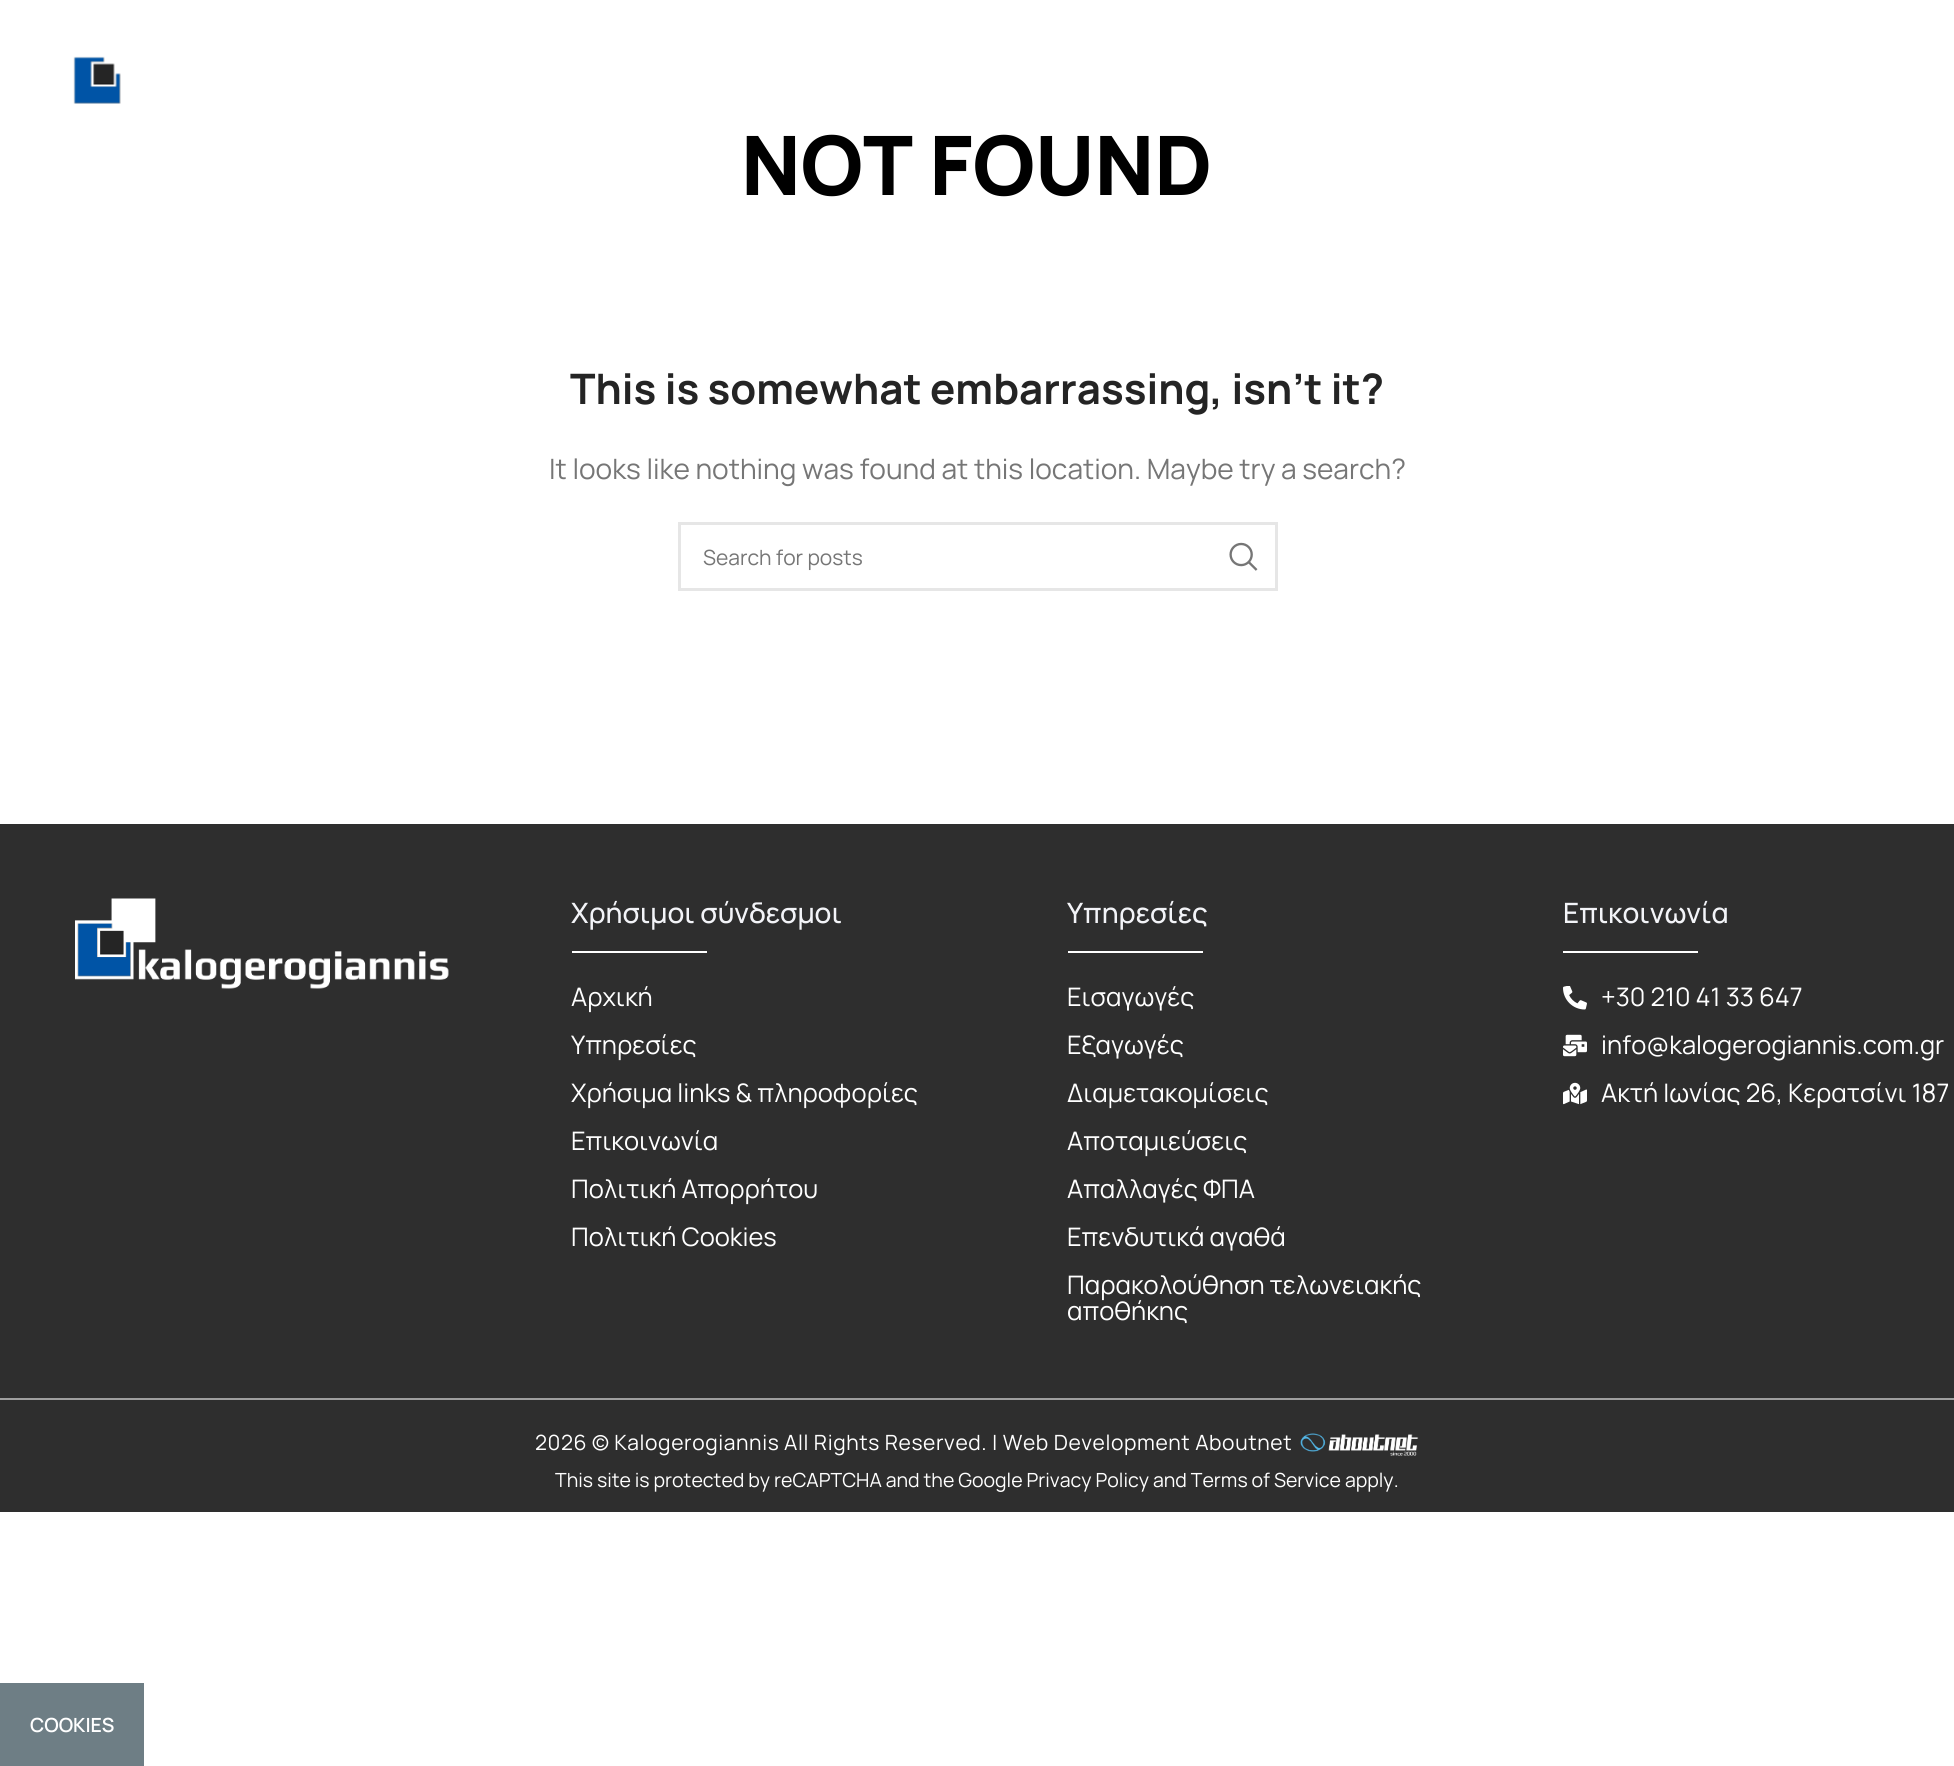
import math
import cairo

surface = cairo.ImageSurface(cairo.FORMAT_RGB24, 1954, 1766)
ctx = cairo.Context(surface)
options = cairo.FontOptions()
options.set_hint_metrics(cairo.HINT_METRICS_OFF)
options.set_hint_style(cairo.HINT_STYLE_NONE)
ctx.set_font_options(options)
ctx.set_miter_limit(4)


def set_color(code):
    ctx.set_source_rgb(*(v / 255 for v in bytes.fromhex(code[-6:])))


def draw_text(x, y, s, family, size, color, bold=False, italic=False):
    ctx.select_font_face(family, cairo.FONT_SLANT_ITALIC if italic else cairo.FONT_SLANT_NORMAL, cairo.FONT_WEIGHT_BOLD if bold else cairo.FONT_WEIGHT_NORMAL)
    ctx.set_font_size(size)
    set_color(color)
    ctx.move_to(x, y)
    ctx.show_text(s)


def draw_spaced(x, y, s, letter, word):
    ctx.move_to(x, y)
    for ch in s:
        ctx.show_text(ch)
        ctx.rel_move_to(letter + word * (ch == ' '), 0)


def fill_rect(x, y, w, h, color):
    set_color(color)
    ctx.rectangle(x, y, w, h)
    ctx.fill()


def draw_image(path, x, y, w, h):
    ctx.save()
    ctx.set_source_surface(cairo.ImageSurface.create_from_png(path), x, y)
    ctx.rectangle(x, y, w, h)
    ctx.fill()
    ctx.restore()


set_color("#ffffff")
ctx.paint()
draw_image("assets/img1.png", 73, 56, 48, 48)
draw_text(741, 195, "NOT FOUND", "Manrope ExtraBold", 82, "#000000")
draw_text(570, 404, "This is somewhat embarrassing, isn’t it?", "Manrope", 42, "#242424", bold=True)
draw_text(549, 479, "It looks like nothing was found at this location. Maybe try a search?", "Manrope", 28.05, "#767676")
ctx.rectangle(679.5, 523.5, 597, 66)
set_color("#e6e6e6")
ctx.set_line_width(3)
ctx.stroke()
draw_text(703, 565, "Search for posts", "Manrope", 21, "#767676")
draw_image("assets/img2.png", 1229, 542, 29, 29)
fill_rect(0, 824, 1954, 574, "#2e2e2e")
draw_image("assets/img3.png", 75, 898, 374, 91)
draw_text(571, 923, "Χρήσιμοι σύνδεσμοι", "Manrope Medium", 28.05, "#f3f4f8")
fill_rect(572, 951, 135, 2, "#ffffff")
draw_text(571, 1006, "Αρχική", "Manrope", 25.5, "#ffffff")
draw_text(571, 1054, "Υπηρεσίες", "Manrope", 25.5, "#ffffff")
draw_text(571, 1102, "Χρήσιμα links & πληροφορίες", "Manrope", 25.5, "#ffffff")
draw_text(571, 1150, "Επικοινωνία", "Manrope", 25.5, "#ffffff")
draw_text(571, 1198, "Πολιτική Απορρήτου", "Manrope", 25.5, "#ffffff")
draw_text(571, 1246, "Πολιτική Cookies", "Manrope", 25.5, "#ffffff")
draw_text(1067, 923, "Υπηρεσίες", "Manrope Medium", 28.05, "#f3f4f8")
fill_rect(1068, 951, 135, 2, "#ffffff")
draw_text(1067, 1006, "Εισαγωγές", "Manrope", 25.5, "#ffffff")
draw_text(1067, 1054, "Εξαγωγές", "Manrope", 25.5, "#ffffff")
draw_text(1067, 1102, "Διαμετακομίσεις", "Manrope", 25.5, "#ffffff")
draw_text(1067, 1150, "Aποταμιεύσεις", "Manrope", 25.5, "#ffffff")
draw_text(1067, 1198, "Απαλλαγές ΦΠΑ", "Manrope", 25.5, "#ffffff")
draw_text(1067, 1246, "Επενδυτικά αγαθά", "Manrope", 25.5, "#ffffff")
draw_text(1067, 1294, "Παρακολούθηση τελωνειακής", "Manrope", 25.5, "#ffffff")
draw_text(1067, 1320, "αποθήκης", "Manrope", 25.5, "#ffffff")
draw_text(1563, 923, "Επικοινωνία", "Manrope Medium", 28.05, "#f3f4f8")
fill_rect(1563, 951, 135, 2, "#ffffff")
draw_image("assets/img4.png", 1563, 986, 24, 24)
draw_text(1601, 1006, "+30 210 41 33 647", "Manrope", 25.5, "#ffffff")
draw_image("assets/img5.png", 1563, 1034, 24, 23)
draw_text(1601, 1054, "info@kalogerogiannis.com.gr", "Manrope", 25.5, "#ffffff")
draw_image("assets/img6.png", 1563, 1082, 24, 23)
draw_text(1601, 1102, "Ακτή Ιωνίας 26, Κερατσίνι 187", "Manrope", 25.5, "#ffffff")
fill_rect(0, 1400, 1954, 112, "#2e2e2e")
fill_rect(0, 1398, 1954, 2, "#9f9f9f")
ctx.set_font_size(21)
set_color("#ffffff")
draw_spaced(535, 1450, "2026 © Kalogerogiannis All Rights Reserved. | Web Development Aboutnet", 0.6, 0)
draw_image("assets/img7.png", 1300, 1433, 119, 23)
draw_text(555, 1487, "This site is protected by reCAPTCHA and the Google Privacy Policy and Terms of Service apply.", "Manrope", 19.5, "#ffffff")
fill_rect(0, 1683, 144, 83, "#6e7e85")
draw_text(30, 1732, "COOKIES", "Manrope SemiBold", 19.5, "#ffffff")
surface.write_to_png("output.png")
